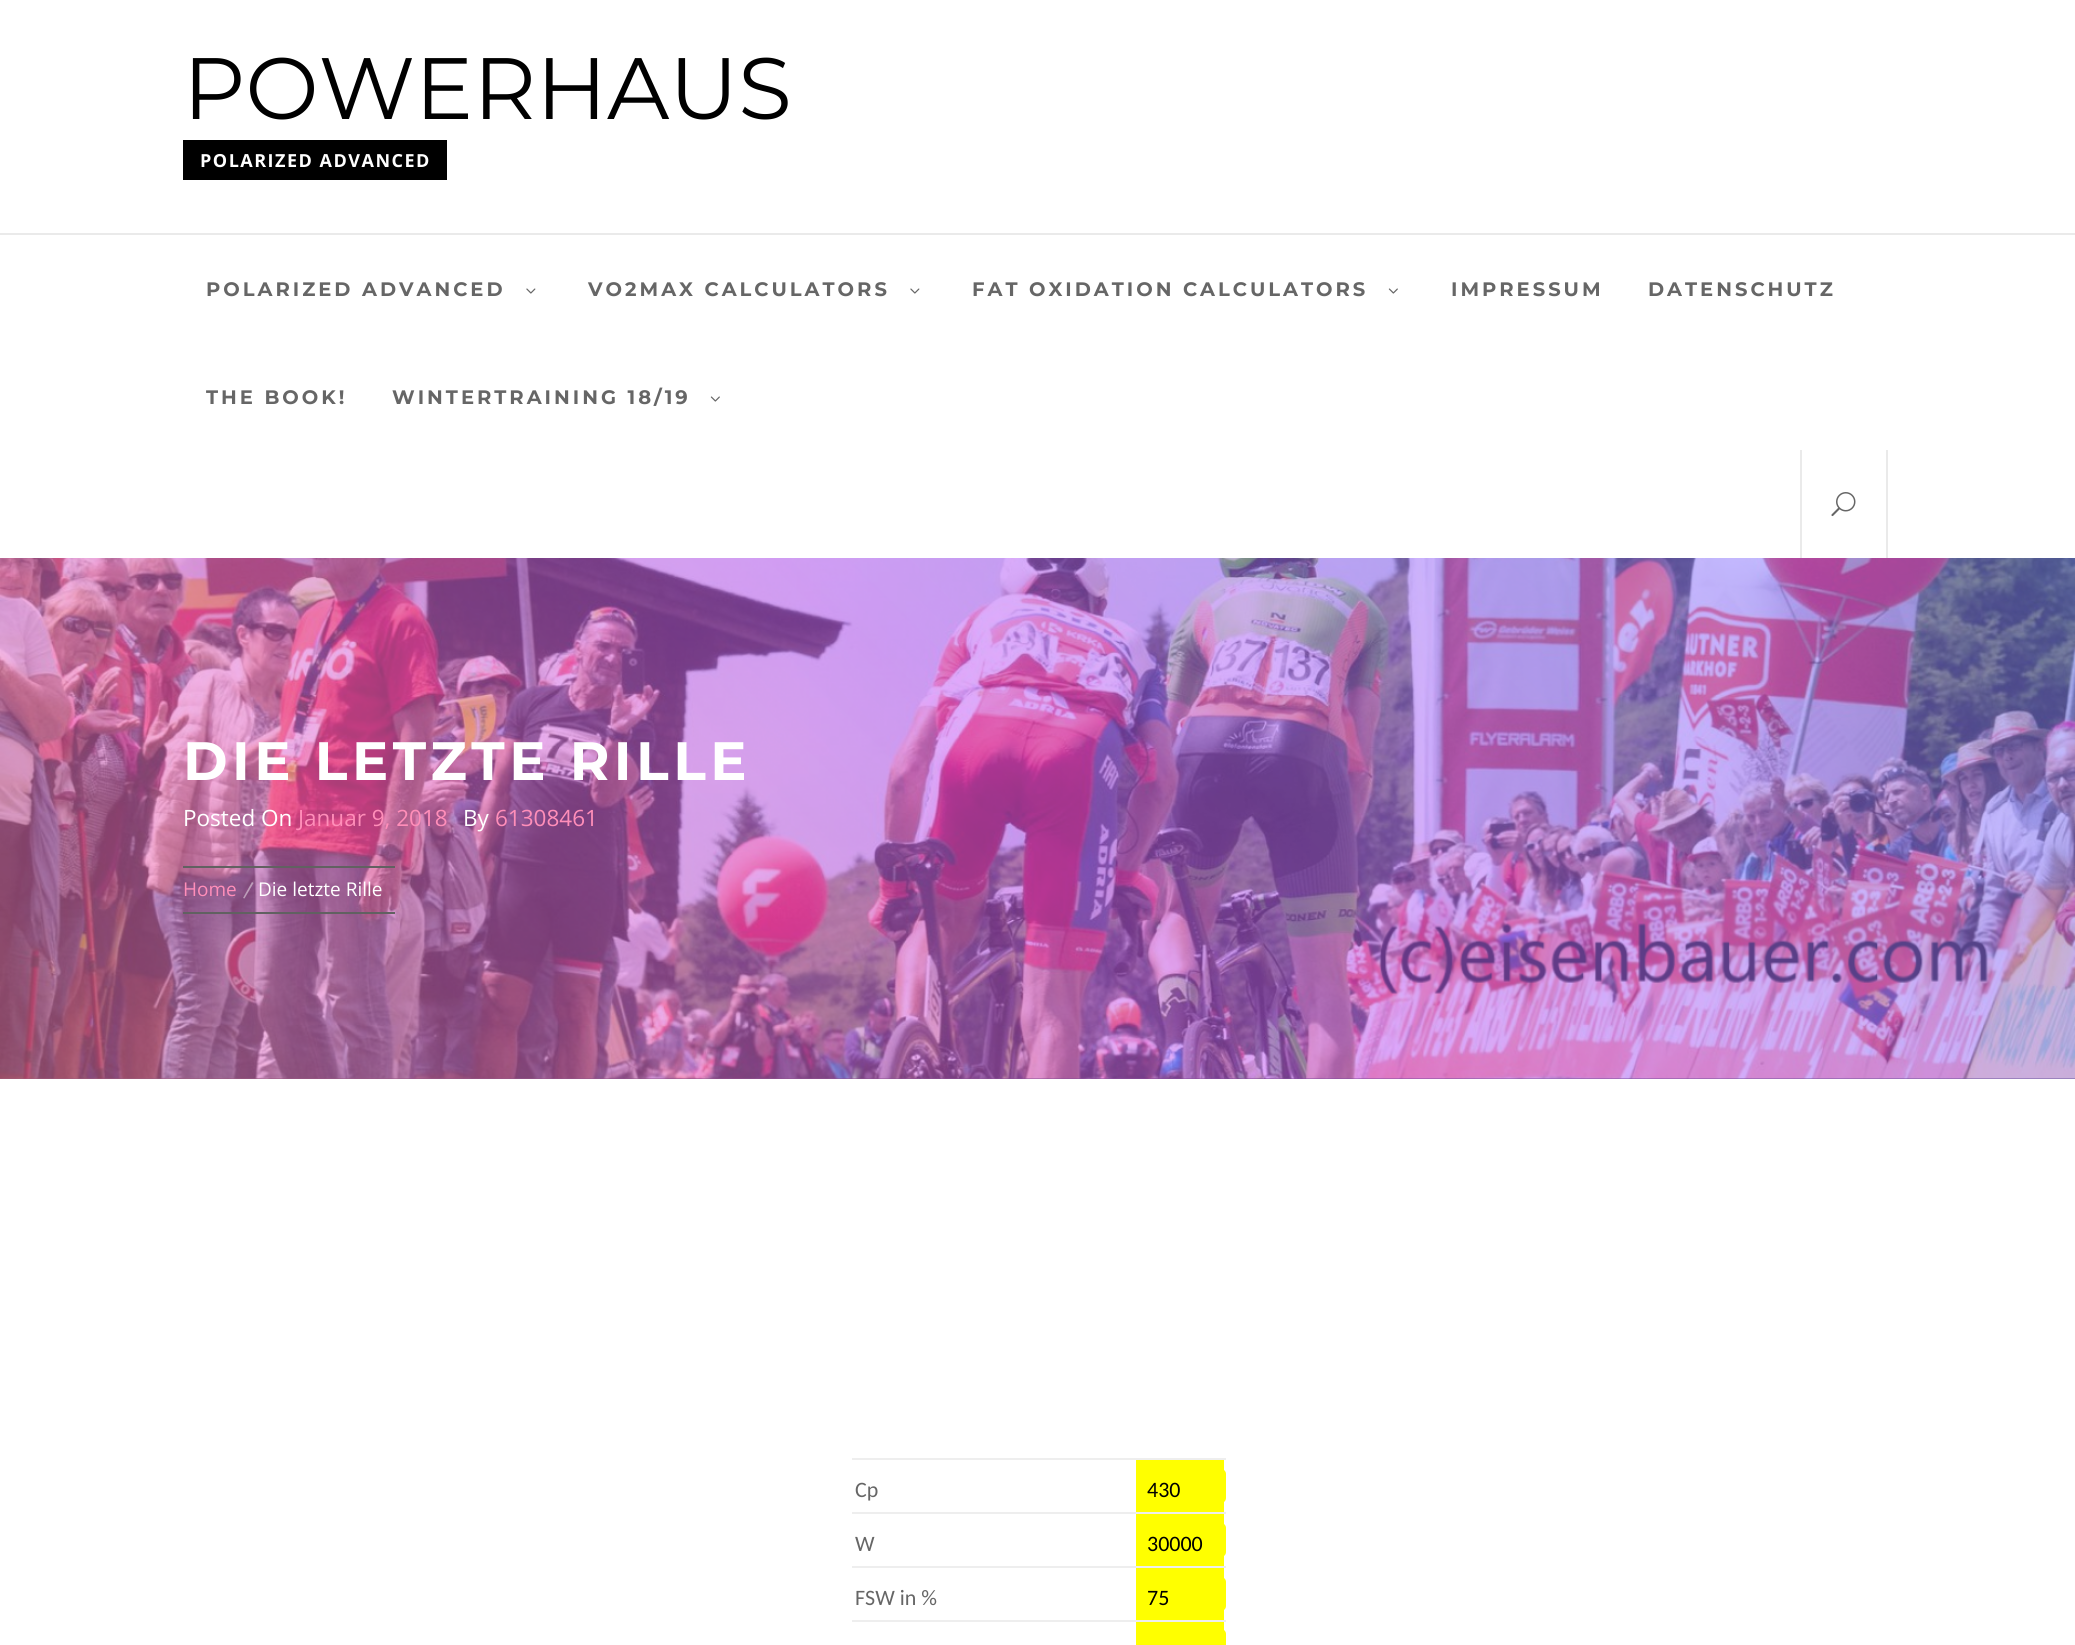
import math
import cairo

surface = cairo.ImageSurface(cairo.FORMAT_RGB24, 2075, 1645)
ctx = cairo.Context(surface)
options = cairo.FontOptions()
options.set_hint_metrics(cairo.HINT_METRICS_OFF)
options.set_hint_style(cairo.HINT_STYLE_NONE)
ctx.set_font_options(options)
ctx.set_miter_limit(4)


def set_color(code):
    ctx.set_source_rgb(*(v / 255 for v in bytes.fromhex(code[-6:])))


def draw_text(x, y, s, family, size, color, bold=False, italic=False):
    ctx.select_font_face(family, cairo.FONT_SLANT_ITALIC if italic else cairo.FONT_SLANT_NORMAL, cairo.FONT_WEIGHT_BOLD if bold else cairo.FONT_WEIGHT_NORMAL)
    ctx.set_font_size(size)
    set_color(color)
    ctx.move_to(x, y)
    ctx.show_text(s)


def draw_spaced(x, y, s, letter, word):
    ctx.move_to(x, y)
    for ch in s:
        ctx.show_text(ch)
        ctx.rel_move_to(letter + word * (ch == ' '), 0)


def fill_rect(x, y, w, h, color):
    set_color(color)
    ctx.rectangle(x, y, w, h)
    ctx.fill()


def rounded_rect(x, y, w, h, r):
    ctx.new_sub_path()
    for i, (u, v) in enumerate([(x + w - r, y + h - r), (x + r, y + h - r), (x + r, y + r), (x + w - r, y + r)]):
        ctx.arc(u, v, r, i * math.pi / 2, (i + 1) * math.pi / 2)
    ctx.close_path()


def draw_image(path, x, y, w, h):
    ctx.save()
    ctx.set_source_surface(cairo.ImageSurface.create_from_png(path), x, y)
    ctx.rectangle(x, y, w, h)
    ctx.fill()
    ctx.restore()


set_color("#ffffff")
ctx.paint()
draw_text(183, 119, "POWERHAUS", "Montserrat", 87, "#000000")
fill_rect(183, 140, 264, 40, "#000000")
ctx.select_font_face("Open Sans", cairo.FONT_SLANT_NORMAL, cairo.FONT_WEIGHT_BOLD)
ctx.set_font_size(18)
set_color("#ffffff")
draw_spaced(200, 167, "POLARIZED ADVANCED", 1.5, 0)
fill_rect(0, 233, 2075, 2, "#eaeaea")
ctx.select_font_face("Montserrat", cairo.FONT_SLANT_NORMAL, cairo.FONT_WEIGHT_BOLD)
ctx.set_font_size(19.5)
set_color("#666666")
draw_spaced(206, 296, "POLARIZED ADVANCED", 3, 0)
draw_image("assets/img1.png", 526, 288, 10, 6)
draw_spaced(588, 296, "VO2MAX CALCULATORS", 3, 0)
draw_image("assets/img1.png", 910, 288, 10, 6)
draw_spaced(972, 296, "FAT OXIDATION CALCULATORS", 3, 0)
draw_image("assets/img2.png", 1388, 288, 10, 6)
draw_spaced(1451, 296, "IMPRESSUM", 3, 0)
draw_spaced(1648, 296, "DATENSCHUTZ", 3, 0)
draw_spaced(206, 404, "THE BOOK!", 3, 0)
draw_spaced(392, 404, "WINTERTRAINING 18/19", 3, 0)
draw_image("assets/img2.png", 710, 396, 10, 6)
fill_rect(1886, 450, 2, 108, "#eaeaea")
fill_rect(1800, 450, 2, 108, "#eaeaea")
draw_image("assets/img3.png", 1831, 492, 25, 25)
fill_rect(0, 1078, 2075, 1, "#333333")
draw_image("assets/img4.png", 0, 558, 2075, 521)
gradient = cairo.LinearGradient(389, 1467, 1687, 169)
gradient.add_color_stop_rgba(0, 0.992, 0.506, 0.71, 0.54)
gradient.add_color_stop_rgba(0.5, 0.788, 0.38, 0.969, 0.54)
gradient.add_color_stop_rgba(1, 0.502, 0.537, 1, 0.54)
ctx.set_source(gradient)
ctx.rectangle(0, 558, 2075, 521)
ctx.fill()
ctx.set_font_size(54)
set_color("#ffffff")
draw_spaced(183, 780, "DIE LETZTE RILLE", 4.5, 0)
draw_text(183, 826, "Posted On", "Open Sans", 22.5, "#ffffff")
draw_text(298, 826, "Januar 9, 2018", "Open Sans", 22.5, "#ff8eb9")
draw_text(463, 826, "By", "Open Sans", 22.5, "#ffffff")
draw_text(495, 826, "61308461", "Open Sans", 22.5, "#ff8eb9")
fill_rect(183, 866, 212, 2, "#616161")
fill_rect(183, 912, 212, 2, "#616161")
draw_text(183, 896, "Home", "Open Sans", 19, "#ff8eb9")
ctx.set_source_rgba(1, 1, 1, 0.45)
ctx.new_path()
ctx.move_to(252, 882)
ctx.line_to(253.5, 883)
ctx.line_to(244.5, 898.5)
ctx.line_to(243, 898)
ctx.close_path()
ctx.fill()
draw_text(258, 896, "Die letzte Rille", "Open Sans", 19, "#ffffff")
fill_rect(852, 1458, 374, 2, "#eeeeee")
fill_rect(852, 1512, 374, 2, "#eeeeee")
draw_text(855, 1497, "Cp", "Carlito", 22, "#666666")
fill_rect(1136, 1460, 88, 52, "#ffff00")
rounded_rect(1145, 1469, 81, 34, 5)
ctx.fill()
draw_text(1147, 1497, "430", "Carlito", 22, "#000000")
fill_rect(852, 1566, 374, 2, "#eeeeee")
draw_text(855, 1551, "W", "Carlito", 22, "#666666")
fill_rect(1136, 1514, 88, 52, "#ffff00")
rounded_rect(1145, 1523, 81, 34, 5)
ctx.fill()
draw_text(1147, 1551, "30000", "Carlito", 22, "#000000")
fill_rect(852, 1620, 374, 2, "#eeeeee")
draw_text(855, 1605, "FSW in %", "Carlito", 22, "#666666")
fill_rect(1136, 1568, 88, 52, "#ffff00")
rounded_rect(1145, 1577, 81, 34, 5)
ctx.fill()
draw_text(1147, 1605, "75", "Carlito", 22, "#000000")
fill_rect(1136, 1622, 88, 23, "#ffff00")
rounded_rect(1145, 1629, 81, 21, 5)
ctx.fill()
surface.write_to_png("output.png")
